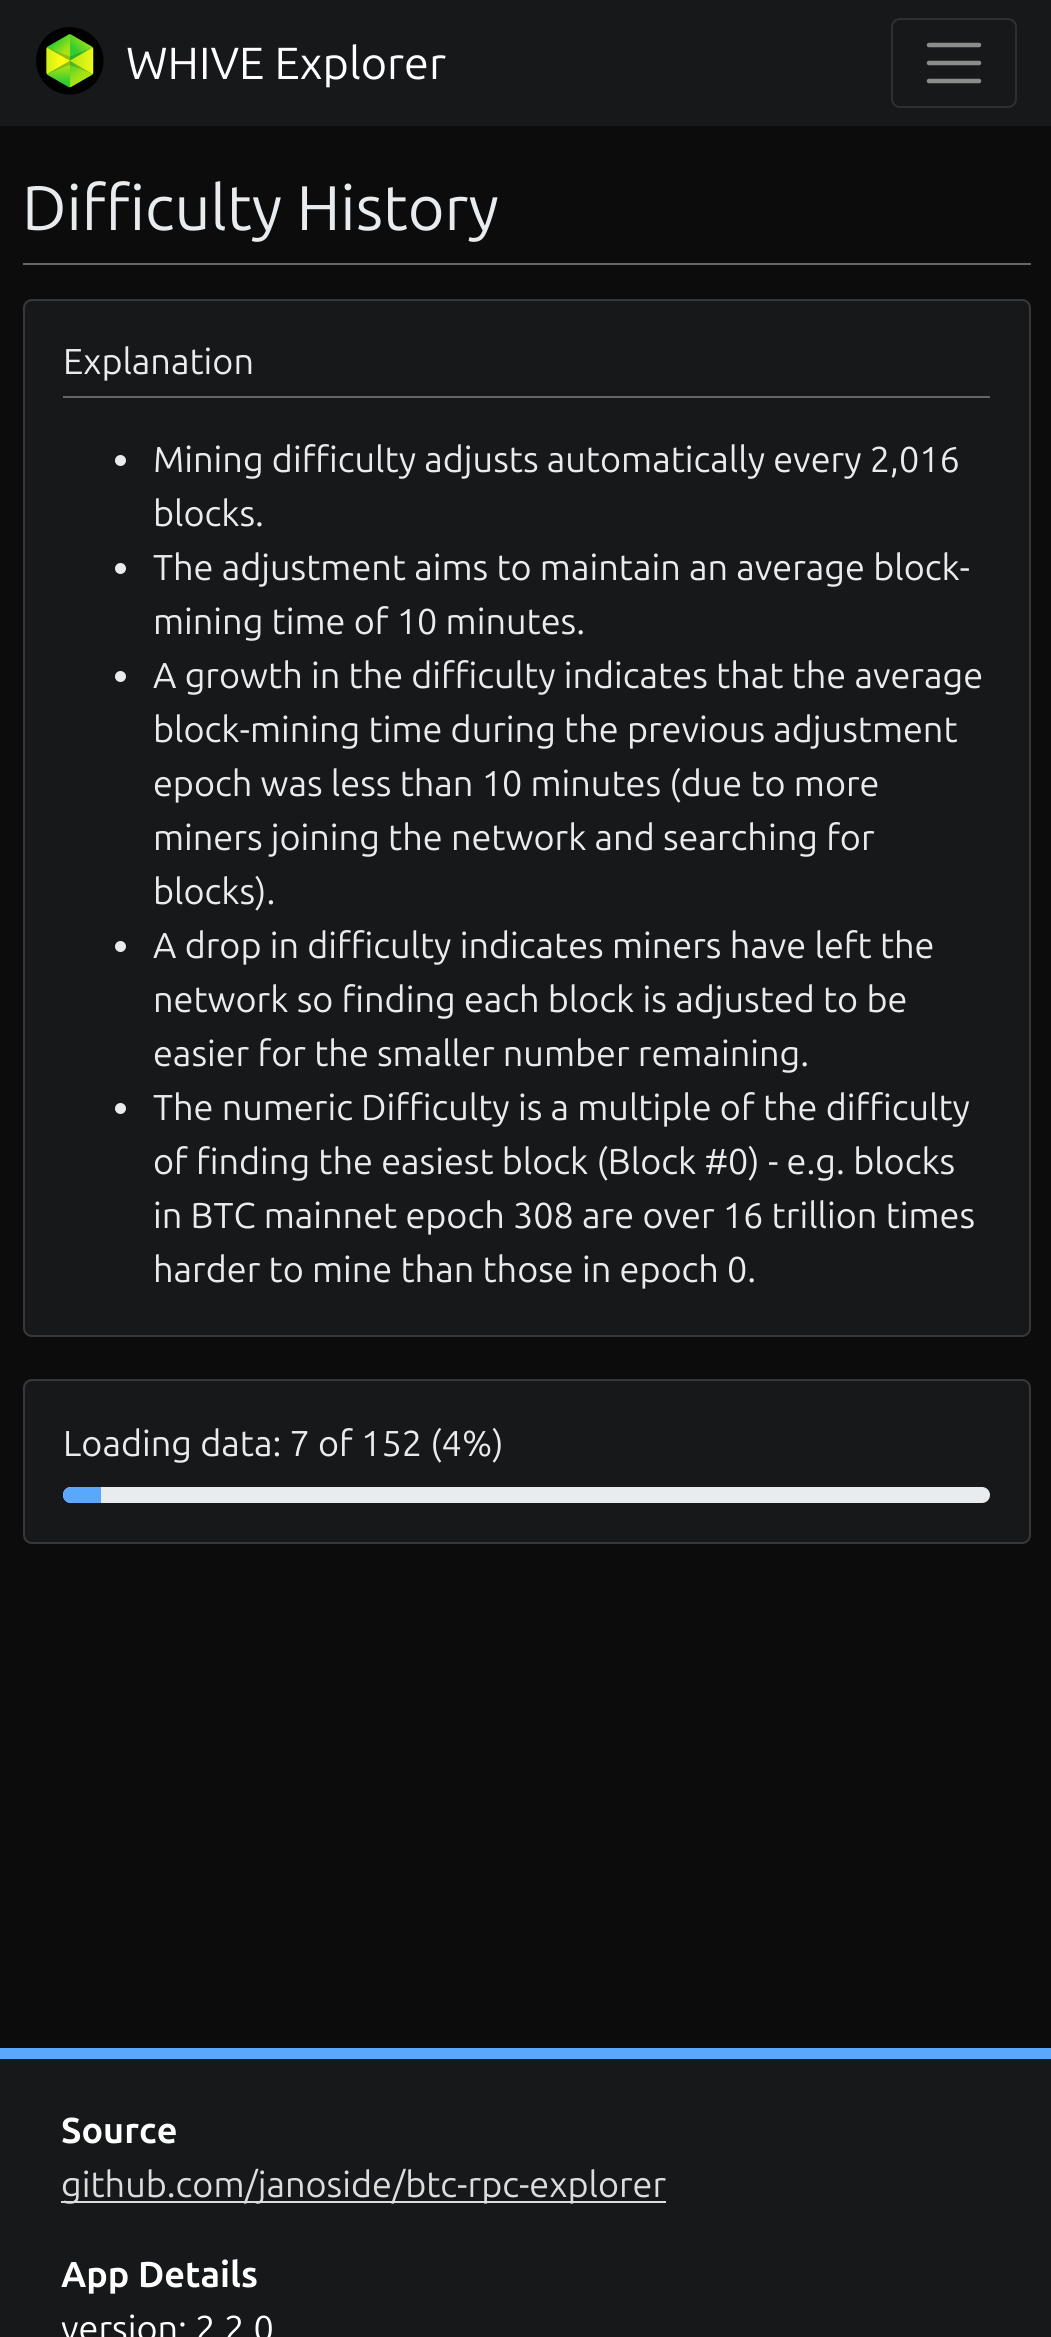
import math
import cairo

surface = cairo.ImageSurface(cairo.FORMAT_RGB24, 1051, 2337)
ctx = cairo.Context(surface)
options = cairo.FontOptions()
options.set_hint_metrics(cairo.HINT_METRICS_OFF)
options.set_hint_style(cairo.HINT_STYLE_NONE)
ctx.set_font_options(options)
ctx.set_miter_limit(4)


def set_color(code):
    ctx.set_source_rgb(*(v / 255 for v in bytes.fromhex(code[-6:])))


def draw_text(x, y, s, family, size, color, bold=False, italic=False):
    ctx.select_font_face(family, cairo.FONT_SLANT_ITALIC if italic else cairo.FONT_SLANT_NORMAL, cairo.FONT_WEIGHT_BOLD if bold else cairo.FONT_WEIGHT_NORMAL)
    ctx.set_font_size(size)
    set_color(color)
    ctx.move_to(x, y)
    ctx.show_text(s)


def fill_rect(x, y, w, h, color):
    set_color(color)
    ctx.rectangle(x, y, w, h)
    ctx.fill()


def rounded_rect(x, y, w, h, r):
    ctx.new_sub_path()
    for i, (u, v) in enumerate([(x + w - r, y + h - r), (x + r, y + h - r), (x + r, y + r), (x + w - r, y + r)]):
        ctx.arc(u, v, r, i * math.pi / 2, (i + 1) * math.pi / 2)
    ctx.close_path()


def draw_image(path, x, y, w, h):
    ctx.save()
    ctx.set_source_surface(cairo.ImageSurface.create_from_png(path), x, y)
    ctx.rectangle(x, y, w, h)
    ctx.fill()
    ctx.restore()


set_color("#161819")
ctx.paint()
draw_image("assets/img1.png", 36, 27, 68, 68)
draw_text(126, 79, "WHIVE Explorer", "Ubuntu", 45, "#ffffff")
rounded_rect(892, 19, 124, 88, 8)
set_color("#2d2f30")
ctx.stroke()
ctx.new_path()
ctx.move_to(929, 45)
ctx.line_to(979, 45)
ctx.move_to(929, 63)
ctx.line_to(979, 63)
ctx.move_to(929, 81)
ctx.line_to(979, 81)
set_color("#8b8c8c")
ctx.set_line_width(4.5)
ctx.set_line_cap(cairo.LINE_CAP_ROUND)
ctx.stroke()
fill_rect(0, 126, 1051, 1922, "#0c0c0c")
draw_text(22, 230, "Difficulty History", "Ubuntu", 63, "#e9ecef")
fill_rect(23, 263, 1008, 2, "#666666")
set_color("#161819")
rounded_rect(23, 299, 1008, 1038, 9)
ctx.fill()
rounded_rect(24, 300, 1006, 1036, 8)
ctx.set_source_rgba(0.604, 0.608, 0.612, 0.25)
ctx.set_line_width(2)
ctx.set_line_cap(cairo.LINE_CAP_BUTT)
ctx.stroke()
draw_text(63, 374, "Explanation", "Ubuntu", 36, "#e9ecef")
fill_rect(63, 396, 927, 2, "#666666")
set_color("#e9ecef")
ctx.new_path()
ctx.arc(120.5, 460.5, 5.5, 0, 2 * math.pi)
ctx.fill()
draw_text(153, 472, "Mining difficulty adjusts automatically every 2,016", "Ubuntu", 36, "#e9ecef")
draw_text(153, 526, "blocks.", "Ubuntu", 36, "#e9ecef")
ctx.new_path()
ctx.arc(120.5, 568.5, 5.5, 0, 2 * math.pi)
ctx.fill()
draw_text(153, 580, "The adjustment aims to maintain an average block-", "Ubuntu", 36, "#e9ecef")
draw_text(153, 634, "mining time of 10 minutes.", "Ubuntu", 36, "#e9ecef")
ctx.new_path()
ctx.arc(120.5, 676.5, 5.5, 0, 2 * math.pi)
ctx.fill()
draw_text(153, 688, "A growth in the difficulty indicates that the average", "Ubuntu", 36, "#e9ecef")
draw_text(153, 742, "block-mining time during the previous adjustment", "Ubuntu", 36, "#e9ecef")
draw_text(153, 796, "epoch was less than 10 minutes (due to more", "Ubuntu", 36, "#e9ecef")
draw_text(153, 850, "miners joining the network and searching for", "Ubuntu", 36, "#e9ecef")
draw_text(153, 904, "blocks).", "Ubuntu", 36, "#e9ecef")
ctx.new_path()
ctx.arc(120.5, 946.5, 5.5, 0, 2 * math.pi)
ctx.fill()
draw_text(153, 958, "A drop in difficulty indicates miners have left the", "Ubuntu", 36, "#e9ecef")
draw_text(153, 1012, "network so finding each block is adjusted to be", "Ubuntu", 36, "#e9ecef")
draw_text(153, 1066, "easier for the smaller number remaining.", "Ubuntu", 36, "#e9ecef")
ctx.new_path()
ctx.arc(120.5, 1108.5, 5.5, 0, 2 * math.pi)
ctx.fill()
draw_text(153, 1120, "The numeric Difficulty is a multiple of the difficulty", "Ubuntu", 36, "#e9ecef")
draw_text(153, 1174, "of finding the easiest block (Block #0) - e.g. blocks", "Ubuntu", 36, "#e9ecef")
draw_text(153, 1228, "in BTC mainnet epoch 308 are over 16 trillion times", "Ubuntu", 36, "#e9ecef")
draw_text(153, 1282, "harder to mine than those in epoch 0.", "Ubuntu", 36, "#e9ecef")
set_color("#161819")
rounded_rect(23, 1379, 1008, 165, 9)
ctx.fill()
rounded_rect(24, 1380, 1006, 163, 8)
ctx.set_source_rgba(0.604, 0.608, 0.612, 0.25)
ctx.stroke()
draw_text(63, 1456, "Loading data: 7 of 152 (4%)", "Ubuntu", 36, "#e9ecef")
rounded_rect(63, 1487, 927, 16, 8)
ctx.fill()
set_color("#5aa8fc")
ctx.new_path()
ctx.move_to(71, 1487)
ctx.line_to(101, 1487)
ctx.line_to(101, 1503)
ctx.line_to(71, 1503)
ctx.curve_to(66.5, 1503, 63, 1499.5, 63, 1495)
ctx.curve_to(63, 1490.5, 66.5, 1487, 71, 1487)
ctx.close_path()
ctx.fill()
fill_rect(0, 2048, 1051, 11, "#5aa8fc")
draw_text(61, 2143, "Source", "Ubuntu", 36, "#ffffff", bold=True)
fill_rect(61, 2201, 605, 2, "#dddddd")
draw_text(61, 2197, "github.com/janoside/btc-rpc-explorer", "Ubuntu", 36, "#dddddd")
draw_text(61, 2287, "App Details", "Ubuntu", 36, "#ffffff", bold=True)
draw_text(61, 2341, "version: 2.2.0", "Ubuntu", 36, "#ffffff")
surface.write_to_png("output.png")
